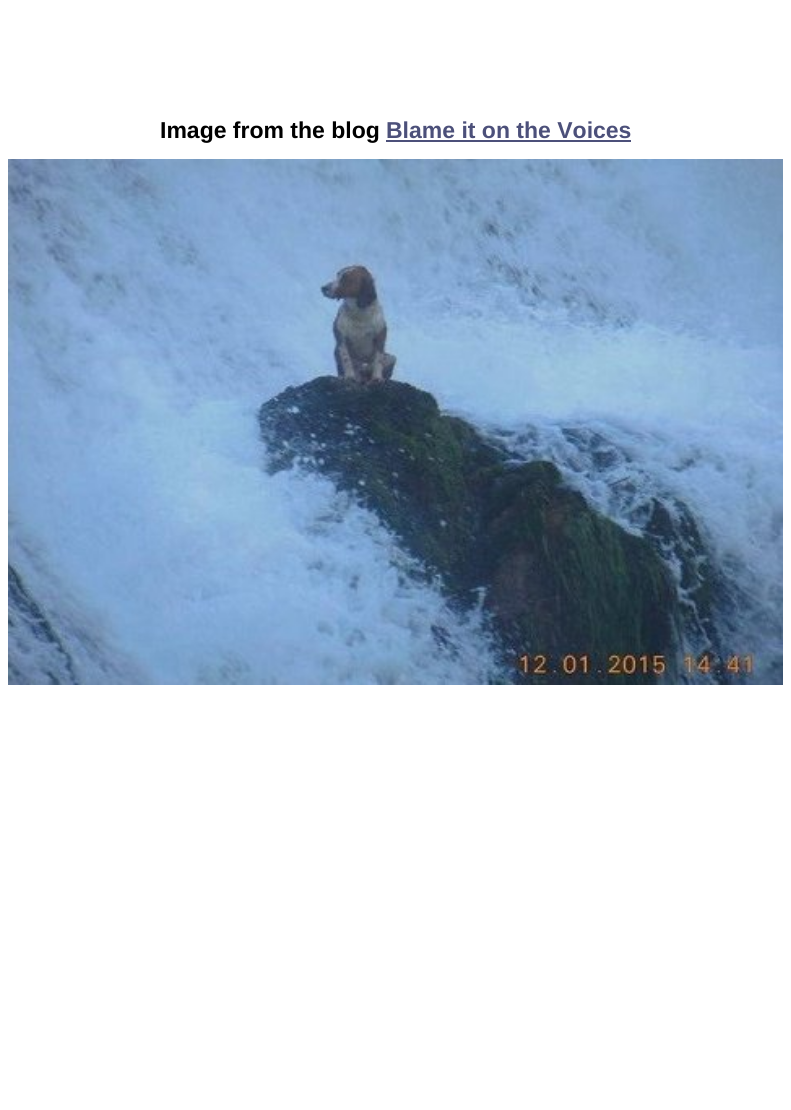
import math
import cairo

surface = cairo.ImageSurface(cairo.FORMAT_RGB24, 791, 1110)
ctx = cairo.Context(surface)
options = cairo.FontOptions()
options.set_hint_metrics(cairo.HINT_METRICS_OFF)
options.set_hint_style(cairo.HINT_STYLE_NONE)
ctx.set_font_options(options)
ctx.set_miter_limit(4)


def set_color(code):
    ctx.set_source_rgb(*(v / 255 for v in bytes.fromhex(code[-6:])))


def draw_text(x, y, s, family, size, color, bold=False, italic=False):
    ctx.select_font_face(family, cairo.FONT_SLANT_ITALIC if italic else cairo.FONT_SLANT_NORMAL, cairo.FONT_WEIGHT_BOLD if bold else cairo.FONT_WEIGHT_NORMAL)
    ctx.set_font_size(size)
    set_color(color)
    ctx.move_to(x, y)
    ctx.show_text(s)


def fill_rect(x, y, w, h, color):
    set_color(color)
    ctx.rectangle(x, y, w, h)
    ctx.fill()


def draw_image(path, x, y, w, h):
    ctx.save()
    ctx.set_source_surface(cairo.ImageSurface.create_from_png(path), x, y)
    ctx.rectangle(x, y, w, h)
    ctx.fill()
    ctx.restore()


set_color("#ffffff")
ctx.paint()
draw_text(160, 138, "Image from the blog", "Liberation Sans", 23, "#000000", bold=True)
draw_text(386, 138, "Blame it on the Voices", "Liberation Sans", 23, "#4c507a", bold=True)
fill_rect(386, 140, 245, 2, "#4c507a")
draw_image("assets/img1.png", 8, 159, 775, 526)
surface.write_to_png("output.png")
